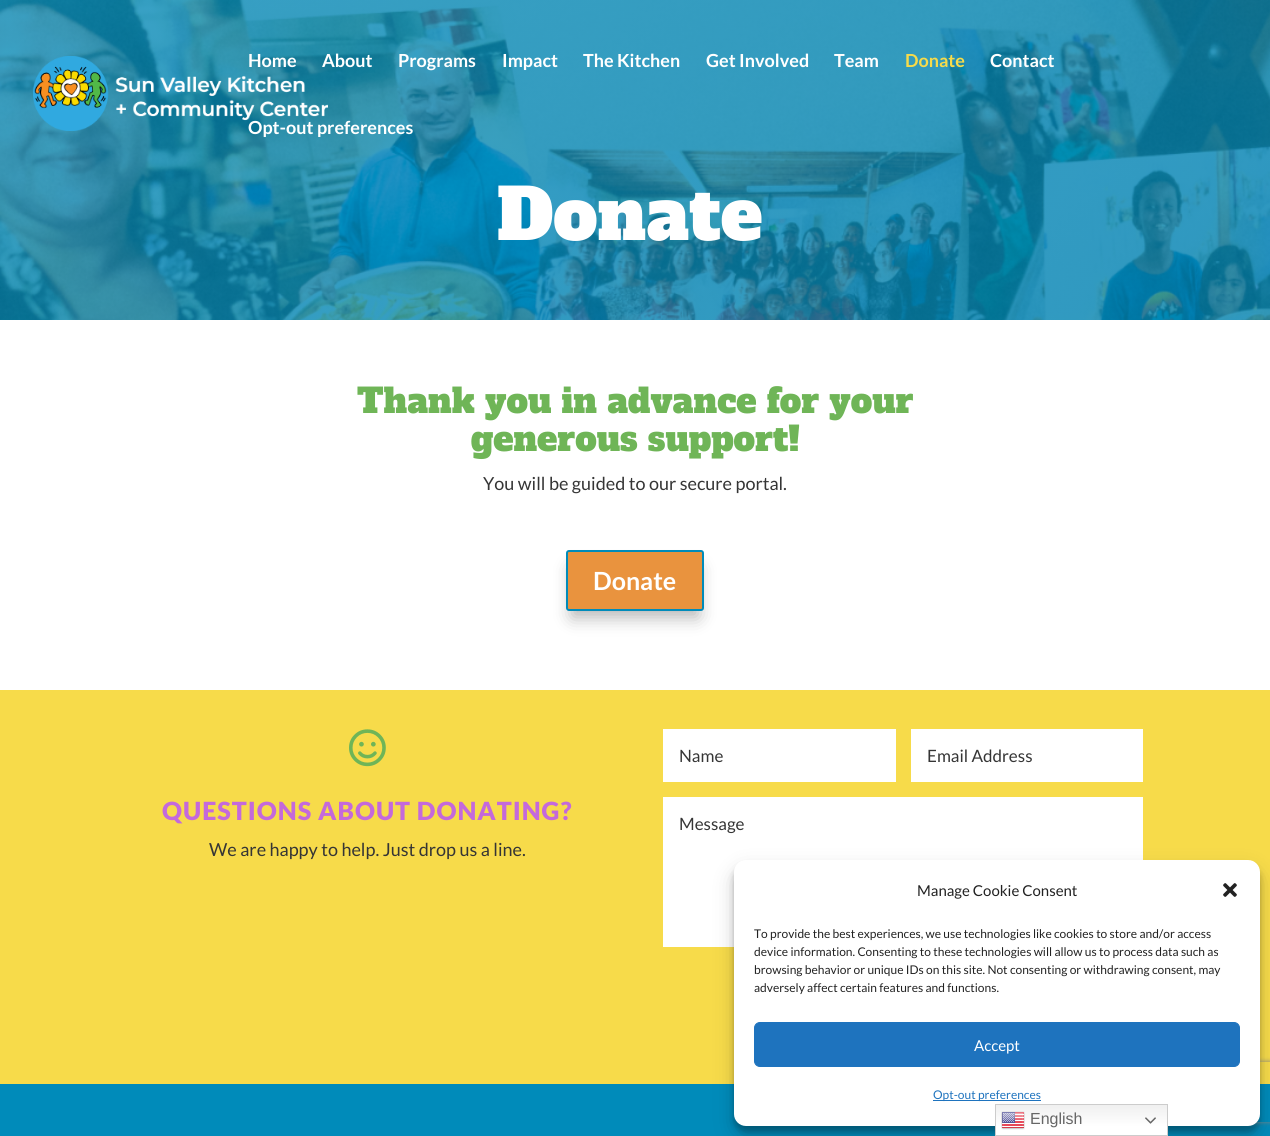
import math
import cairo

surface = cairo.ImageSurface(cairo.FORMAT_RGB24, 1270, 1136)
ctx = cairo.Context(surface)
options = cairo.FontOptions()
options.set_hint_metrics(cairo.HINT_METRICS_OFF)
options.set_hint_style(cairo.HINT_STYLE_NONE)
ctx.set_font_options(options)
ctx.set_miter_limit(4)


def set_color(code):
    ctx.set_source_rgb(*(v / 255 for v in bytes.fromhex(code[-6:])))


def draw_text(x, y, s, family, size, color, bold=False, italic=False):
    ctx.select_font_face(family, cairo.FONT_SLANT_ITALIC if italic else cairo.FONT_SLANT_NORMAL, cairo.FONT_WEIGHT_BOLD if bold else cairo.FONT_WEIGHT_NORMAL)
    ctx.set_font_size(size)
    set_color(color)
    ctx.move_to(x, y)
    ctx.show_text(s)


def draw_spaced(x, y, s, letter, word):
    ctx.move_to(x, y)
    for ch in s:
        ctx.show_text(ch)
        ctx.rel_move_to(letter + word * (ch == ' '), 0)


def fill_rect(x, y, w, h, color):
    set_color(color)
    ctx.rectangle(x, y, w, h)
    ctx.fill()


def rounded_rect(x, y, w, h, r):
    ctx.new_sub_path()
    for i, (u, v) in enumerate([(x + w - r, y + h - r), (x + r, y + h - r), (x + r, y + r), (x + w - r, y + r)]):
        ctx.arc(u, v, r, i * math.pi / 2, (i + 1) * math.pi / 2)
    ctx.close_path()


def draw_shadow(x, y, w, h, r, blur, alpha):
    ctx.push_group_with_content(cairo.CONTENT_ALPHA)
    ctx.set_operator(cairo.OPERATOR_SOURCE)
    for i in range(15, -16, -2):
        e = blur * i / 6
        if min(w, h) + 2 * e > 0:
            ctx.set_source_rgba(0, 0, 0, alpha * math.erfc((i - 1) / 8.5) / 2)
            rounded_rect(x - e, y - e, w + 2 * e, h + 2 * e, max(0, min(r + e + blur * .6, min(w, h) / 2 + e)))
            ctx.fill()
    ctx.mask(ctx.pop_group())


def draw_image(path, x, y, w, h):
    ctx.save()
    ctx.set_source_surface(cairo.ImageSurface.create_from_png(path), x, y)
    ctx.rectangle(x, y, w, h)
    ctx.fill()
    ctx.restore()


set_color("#ffffff")
ctx.paint()
draw_image("assets/img2.png", 0, 0, 1270, 320)
draw_image("assets/img1.png", 33, 56, 295, 75)
draw_text(248, 67, "Home", "Lato", 18, "#ffffff", bold=True)
draw_text(322, 67, "About", "Lato", 18, "#ffffff", bold=True)
draw_text(398, 67, "Programs", "Lato", 18, "#ffffff", bold=True)
draw_text(502, 67, "Impact", "Lato", 18, "#ffffff", bold=True)
draw_text(583, 67, "The Kitchen", "Lato", 18, "#ffffff", bold=True)
draw_text(706, 67, "Get Involved", "Lato", 18, "#ffffff", bold=True)
draw_text(834, 67, "Team", "Lato", 18, "#ffffff", bold=True)
draw_text(905, 67, "Donate", "Lato", 18, "#f7db4a", bold=True)
draw_text(990, 67, "Contact", "Lato", 18, "#ffffff", bold=True)
draw_text(248, 134, "Opt-out preferences", "Lato", 18, "#ffffff", bold=True)
draw_text(497, 240, "Donate", "Alfa Slab One", 70, "#ffffff")
draw_text(357, 413, "Thank you in advance for your", "Alfa Slab One", 34, "#6fb557")
draw_text(471, 451, "generous support!", "Alfa Slab One", 34, "#6fb557")
draw_text(483, 490, "You will be guided to our secure portal.", "Lato", 18, "#353535")
set_color("#000000")
draw_shadow(572, 568, 126, 49, 0, 9, 0.3)
set_color("#e9933e")
rounded_rect(567, 551, 136, 59, 2)
ctx.fill_preserve()
set_color("#008bba")
ctx.stroke()
draw_text(593, 590, "Donate", "Lato", 25, "#ffffff", bold=True)
fill_rect(0, 690, 1270, 394, "#f7db4a")
draw_image("assets/img3.png", 349, 729, 37, 38)
ctx.select_font_face("Lato Black")
set_color("#c469db")
draw_spaced(162, 820, "QUESTIONS ABOUT DONATING?", 1, 0)
draw_text(209, 856, "We are happy to help. Just drop us a line.", "Lato", 18, "#353535")
fill_rect(663, 729, 233, 53, "#ffffff")
draw_text(679, 762, "Name", "Lato", 17, "#353535")
fill_rect(911, 729, 232, 53, "#ffffff")
draw_text(927, 762, "Email Address", "Lato", 17, "#353535")
fill_rect(663, 797, 480, 150, "#ffffff")
draw_text(679, 830, "Message", "Lato", 17, "#353535")
fill_rect(0, 1084, 1270, 52, "#008bba")
set_color("#000000")
draw_shadow(734, 866, 526, 266, 12, 3, 0.23)
draw_shadow(734, 870, 526, 266, 12, 10, 0.19)
ctx.save()
ctx.set_fill_rule(cairo.FILL_RULE_EVEN_ODD)
ctx.new_path()
ctx.move_to(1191, 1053)
ctx.line_to(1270, 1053)
ctx.line_to(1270, 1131)
ctx.line_to(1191, 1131)
ctx.close_path()
ctx.move_to(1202, 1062)
ctx.line_to(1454, 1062)
ctx.curve_to(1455, 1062, 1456, 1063, 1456, 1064)
ctx.line_to(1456, 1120)
ctx.curve_to(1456, 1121, 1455, 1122, 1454, 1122)
ctx.line_to(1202, 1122)
ctx.curve_to(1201, 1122, 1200, 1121, 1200, 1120)
ctx.line_to(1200, 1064)
ctx.curve_to(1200, 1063, 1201, 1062, 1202, 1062)
ctx.close_path()
ctx.clip()
set_color("#808080")
draw_shadow(1200, 1062, 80, 60, 2, 2.5, 1)
ctx.restore()
set_color("#ffffff")
rounded_rect(734, 860, 526, 266, 12)
ctx.fill()
draw_text(917, 896, "Manage Cookie Consent", "Lato", 15, "#222222")
draw_image("assets/img4.png", 1223, 883, 14, 14)
draw_text(754, 938, "To provide the best experiences, we use technologies like cookies to store and/or access", "Lato", 12, "#222222")
draw_text(754, 956, "device information. Consenting to these technologies will allow us to process data such as", "Lato", 12, "#222222")
draw_text(754, 974, "browsing behavior or unique IDs on this site. Not consenting or withdrawing consent, may", "Lato", 12, "#222222")
draw_text(754, 992, "adversely affect certain features and functions.", "Lato", 12, "#222222")
set_color("#1e73be")
rounded_rect(754.5, 1022.5, 485, 44, 5.5)
ctx.fill_preserve()
ctx.set_line_width(1)
ctx.stroke()
draw_text(974, 1051, "Accept", "Lato", 15, "#ffffff")
fill_rect(933, 1100, 108, 1, "#1e73be")
draw_text(933, 1099, "Opt-out preferences", "Lato", 12, "#1e73be")
gradient = cairo.LinearGradient(1082, 1104, 1082, 1136)
gradient.add_color_stop_rgba(0, 0.937, 0.937, 0.937, 1)
gradient.add_color_stop_rgba(0.7, 1, 1, 1, 1)
ctx.set_source(gradient)
ctx.rectangle(996, 1105, 171, 30)
ctx.fill()
ctx.rectangle(995.5, 1104.5, 172, 31)
set_color("#cccccc")
ctx.stroke()
draw_image("assets/img5.png", 1001, 1111, 24, 19)
draw_text(1030, 1124, "English", "Liberation Sans", 16, "#666666")
draw_image("assets/img6.png", 1145, 1117, 11, 7)
surface.write_to_png("output.png")
